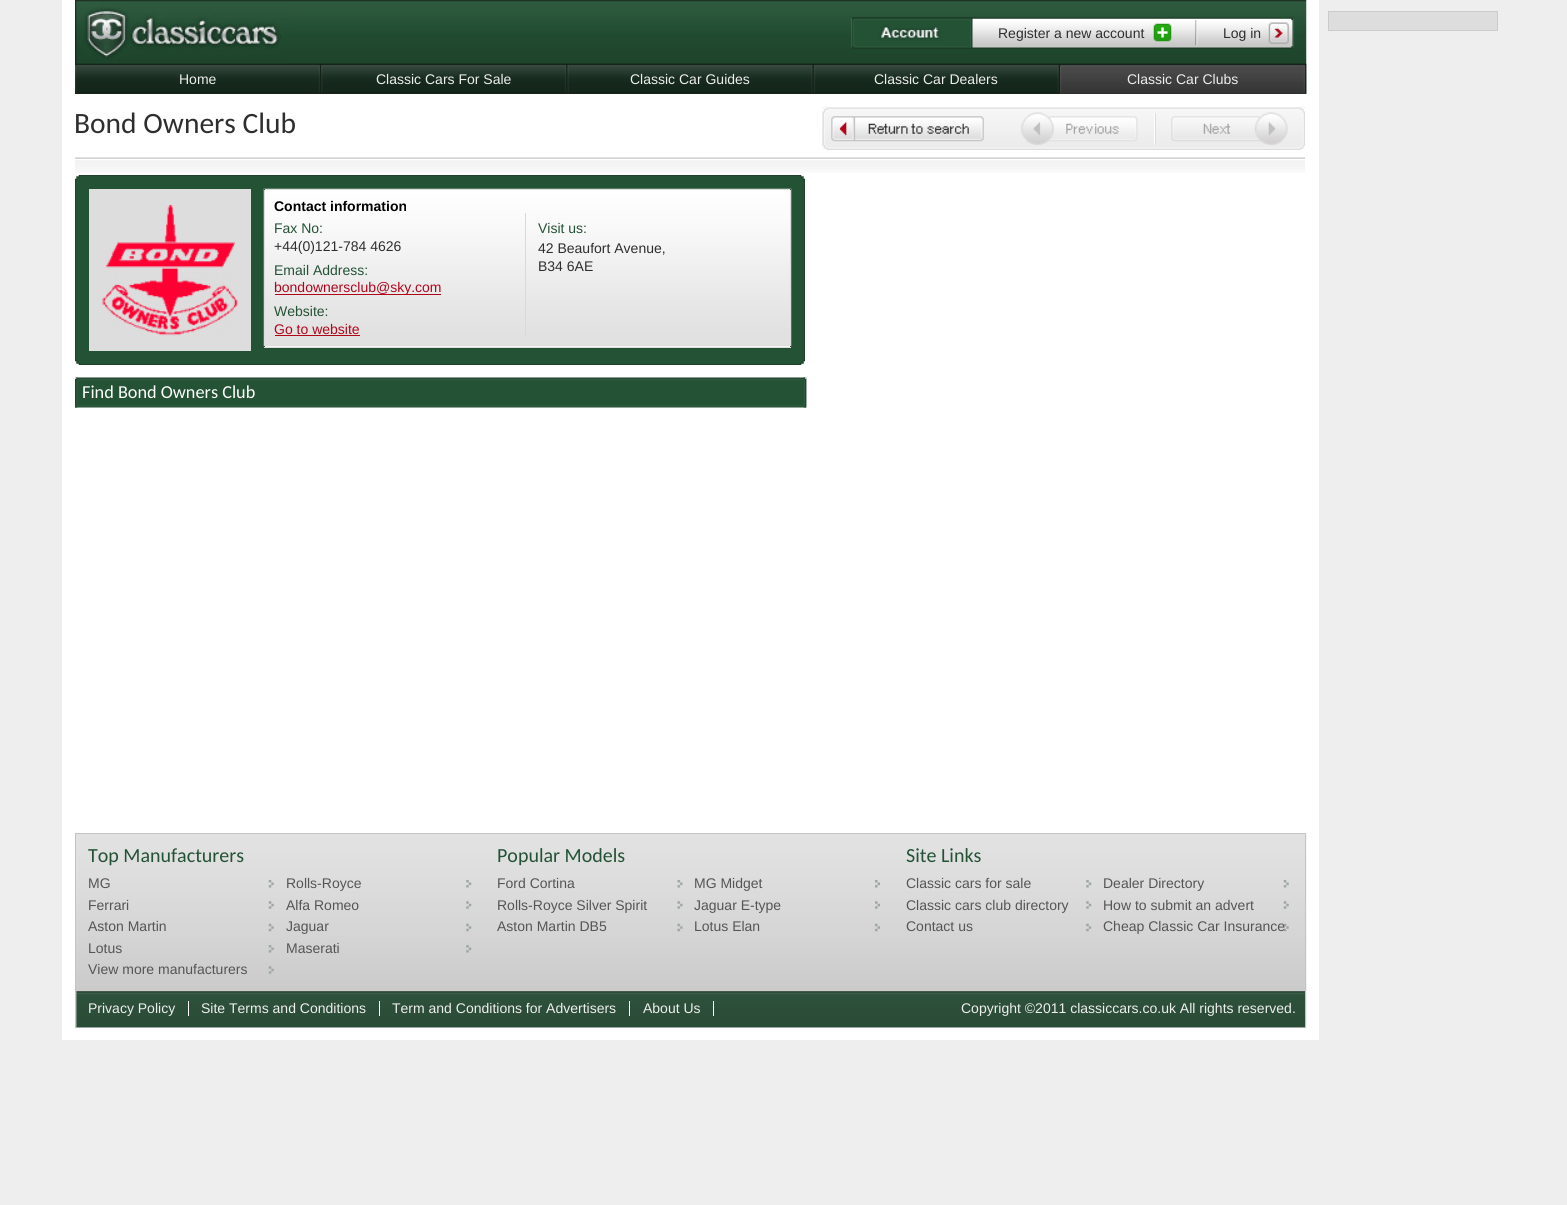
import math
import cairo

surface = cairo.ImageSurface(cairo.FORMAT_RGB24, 1567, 1205)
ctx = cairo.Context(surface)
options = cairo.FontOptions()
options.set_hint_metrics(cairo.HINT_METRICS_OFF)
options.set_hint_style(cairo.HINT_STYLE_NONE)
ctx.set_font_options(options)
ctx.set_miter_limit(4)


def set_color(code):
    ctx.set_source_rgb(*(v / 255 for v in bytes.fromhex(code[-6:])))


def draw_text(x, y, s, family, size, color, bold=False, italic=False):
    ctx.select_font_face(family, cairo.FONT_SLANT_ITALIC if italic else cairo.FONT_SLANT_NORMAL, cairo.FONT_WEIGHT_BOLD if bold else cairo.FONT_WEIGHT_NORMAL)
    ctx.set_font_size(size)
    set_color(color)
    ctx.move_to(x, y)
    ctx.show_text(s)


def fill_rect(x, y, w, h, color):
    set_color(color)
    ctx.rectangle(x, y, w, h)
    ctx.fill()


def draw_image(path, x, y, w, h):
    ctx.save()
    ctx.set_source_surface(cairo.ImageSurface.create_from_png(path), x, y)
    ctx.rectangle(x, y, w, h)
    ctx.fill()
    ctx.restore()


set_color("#eeeeee")
ctx.paint()
fill_rect(62, 0, 1257, 1040, "#ffffff")
draw_image("assets/img1.png", 75, 0, 1232, 94)
draw_image("assets/img2.png", 75, 0, 214, 64)
draw_image("assets/img3.png", 851, 17, 443, 32)
draw_image("assets/img4.png", 851, 17, 122, 32)
draw_image("assets/img5.png", 1195, 20, 3, 25)
draw_image("assets/img6.png", 1153, 23, 19, 19)
draw_text(998, 38, "Register a new account", "Liberation Sans", 14, "#2e2e2e")
draw_image("assets/img7.png", 1268, 22, 21, 22)
draw_text(1223, 38, "Log in", "Liberation Sans", 14, "#2e2e2e")
draw_image("assets/img8.png", 1291, 18, 3, 31)
draw_image("assets/img9.png", 75, 63, 1232, 31)
draw_image("assets/img10.png", 75, 65, 247, 29)
draw_text(179, 84, "Home", "Liberation Sans", 14, "#eeeeee")
draw_image("assets/img11.png", 321, 65, 247, 29)
draw_text(376, 84, "Classic Cars For Sale", "Liberation Sans", 14, "#eeeeee")
draw_image("assets/img12.png", 567, 65, 247, 29)
draw_text(630, 84, "Classic Car Guides", "Liberation Sans", 14, "#eeeeee")
draw_image("assets/img13.png", 813, 65, 247, 29)
draw_text(874, 84, "Classic Car Dealers", "Liberation Sans", 14, "#eeeeee")
draw_image("assets/img14.png", 1060, 64, 247, 30)
draw_text(1127, 84, "Classic Car Clubs", "Liberation Sans", 14, "#eeeeee")
set_color("#dddddd")
ctx.rectangle(1328.5, 11.5, 169, 19)
ctx.fill_preserve()
set_color("#cbcbcb")
ctx.set_line_width(1)
ctx.stroke()
draw_text(74, 133, "Bond Owners Club", "Carlito", 29.5, "#2e2e2e")
draw_image("assets/img15.png", 822, 107, 483, 43)
draw_image("assets/img16.png", 822, 107, 6, 43)
draw_image("assets/img17.png", 831, 116, 153, 26)
draw_image("assets/img18.png", 1021, 112, 117, 33)
fill_rect(1154, 113, 1, 32, "#ffffff")
draw_image("assets/img19.png", 1171, 112, 117, 33)
fill_rect(1155, 113, 1, 32, "#dcdcdc")
draw_image("assets/img20.png", 1300, 107, 5, 43)
draw_image("assets/img21.png", 75, 157, 1230, 16)
set_color("#245235")
ctx.rectangle(75.5, 175.5, 729, 189)
ctx.fill_preserve()
set_color("#20412c")
ctx.stroke()
draw_image("assets/img22.png", 75, 175, 5, 5)
draw_image("assets/img23.png", 800, 175, 5, 5)
fill_rect(89, 189, 162, 162, "#dddddd")
draw_image("assets/img24.png", 102, 204, 136, 132)
fill_rect(265, 346, 525, 1, "#ffffff")
draw_image("assets/img25.png", 263, 188, 529, 159)
ctx.rectangle(264.5, 189.5, 526, 158)
set_color("#dddddd")
ctx.stroke()
fill_rect(264, 189, 1, 1, "#245235")
fill_rect(790, 189, 1, 1, "#245235")
draw_text(274, 211, "Contact information", "Liberation Sans", 14, "#000000", bold=True)
fill_rect(525, 213, 1, 123, "#dad8d8")
draw_text(274, 233, "Fax No:", "Liberation Sans", 14, "#245235")
draw_text(274, 251, "+44(0)121-784 4626", "Liberation Sans", 14, "#2e2e2e")
draw_text(274, 275, "Email Address:", "Liberation Sans", 14, "#245235")
fill_rect(275, 294, 166, 1, "#b0061a")
draw_text(274, 292, "bondownersclub@sky.com", "Liberation Sans", 14, "#b0061a")
draw_text(274, 316, "Website:", "Liberation Sans", 14, "#245235")
draw_text(274, 334, "Go to website", "Liberation Sans", 14, "#b0061a")
fill_rect(275, 335, 85, 1, "#b0061a")
draw_text(538, 233, "Visit us:", "Liberation Sans", 14, "#245235")
draw_text(538, 253, "42 Beaufort Avenue,", "Liberation Sans", 14, "#2e2e2e")
draw_text(538, 271, "B34 6AE", "Liberation Sans", 14, "#2e2e2e")
fill_rect(264, 346, 1, 1, "#245235")
fill_rect(790, 346, 1, 1, "#245235")
draw_image("assets/img26.png", 75, 360, 5, 5)
draw_image("assets/img27.png", 800, 360, 5, 5)
draw_image("assets/img29.png", 75, 377, 732, 31)
draw_image("assets/img28.png", 75, 377, 3, 31)
draw_text(82, 398, "Find Bond Owners Club", "Carlito", 18.25, "#fefefe")
draw_image("assets/img30.png", 803, 377, 4, 31)
fill_rect(76, 1027, 1229, 1, "#bebebe")
draw_image("assets/img31.png", 76, 833, 1231, 195)
fill_rect(75, 833, 1231, 1, "#c5c4c4")
fill_rect(1305, 833, 1, 195, "#c5c4c4")
fill_rect(75, 833, 1, 195, "#c5c4c4")
draw_text(88, 862, "Top Manufacturers", "Carlito", 20, "#245235")
draw_image("assets/img32.png", 268, 880, 6, 8)
draw_text(88, 888, "MG", "Liberation Sans", 14, "#555555")
draw_image("assets/img33.png", 466, 880, 6, 8)
draw_text(286, 888, "Rolls-Royce", "Liberation Sans", 14, "#555555")
draw_image("assets/img34.png", 268, 901, 6, 8)
draw_text(88, 910, "Ferrari", "Liberation Sans", 14, "#555555")
draw_image("assets/img35.png", 466, 901, 6, 8)
draw_text(286, 910, "Alfa Romeo", "Liberation Sans", 14, "#555555")
draw_image("assets/img36.png", 268, 923, 6, 9)
draw_text(88, 931, "Aston Martin", "Liberation Sans", 14, "#555555")
draw_image("assets/img37.png", 466, 923, 6, 9)
draw_text(286, 931, "Jaguar", "Liberation Sans", 14, "#555555")
draw_image("assets/img38.png", 268, 945, 6, 8)
draw_text(88, 953, "Lotus", "Liberation Sans", 14, "#555555")
draw_image("assets/img39.png", 466, 945, 6, 8)
draw_text(286, 953, "Maserati", "Liberation Sans", 14, "#555555")
draw_image("assets/img40.png", 268, 966, 6, 8)
draw_text(88, 974, "View more manufacturers", "Liberation Sans", 14, "#555555")
draw_text(497, 862, "Popular Models", "Carlito", 20, "#245235")
draw_image("assets/img41.png", 677, 880, 6, 8)
draw_text(497, 888, "Ford Cortina", "Liberation Sans", 14, "#555555")
draw_image("assets/img42.png", 875, 880, 5, 8)
draw_text(694, 888, "MG Midget", "Liberation Sans", 14, "#555555")
draw_image("assets/img43.png", 677, 901, 6, 8)
draw_text(497, 910, "Rolls-Royce Silver Spirit", "Liberation Sans", 14, "#555555")
draw_image("assets/img44.png", 875, 901, 5, 8)
draw_text(694, 910, "Jaguar E-type", "Liberation Sans", 14, "#555555")
draw_image("assets/img45.png", 677, 923, 6, 9)
draw_text(497, 931, "Aston Martin DB5", "Liberation Sans", 14, "#555555")
draw_image("assets/img46.png", 875, 923, 5, 9)
draw_text(694, 931, "Lotus Elan", "Liberation Sans", 14, "#555555")
draw_text(906, 862, "Site Links", "Carlito", 20, "#245235")
draw_image("assets/img33.png", 1086, 880, 6, 8)
draw_text(906, 888, "Classic cars for sale", "Liberation Sans", 14, "#555555")
draw_image("assets/img32.png", 1283, 880, 6, 8)
draw_text(1103, 888, "Dealer Directory", "Liberation Sans", 14, "#555555")
draw_image("assets/img35.png", 1086, 901, 6, 8)
draw_text(906, 910, "Classic cars club directory", "Liberation Sans", 14, "#555555")
draw_image("assets/img34.png", 1283, 901, 6, 8)
draw_text(1103, 910, "How to submit an advert", "Liberation Sans", 14, "#555555")
draw_image("assets/img37.png", 1086, 923, 6, 9)
draw_text(906, 931, "Contact us", "Liberation Sans", 14, "#555555")
draw_image("assets/img36.png", 1283, 923, 6, 9)
draw_text(1103, 931, "Cheap Classic Car Insurance", "Liberation Sans", 14, "#555555")
draw_image("assets/img47.png", 76, 991, 1229, 37)
fill_rect(188, 1001, 1, 15, "#fefefe")
draw_text(88, 1013, "Privacy Policy", "Liberation Sans", 14, "#eeeeee")
fill_rect(379, 1001, 1, 15, "#fefefe")
draw_text(201, 1013, "Site Terms and Conditions", "Liberation Sans", 14, "#eeeeee")
fill_rect(629, 1001, 1, 15, "#fefefe")
draw_text(392, 1013, "Term and Conditions for Advertisers", "Liberation Sans", 14, "#eeeeee")
fill_rect(713, 1001, 1, 15, "#fefefe")
draw_text(643, 1013, "About Us", "Liberation Sans", 14, "#eeeeee")
draw_text(961, 1013, "Copyright ©2011 classiccars.co.uk All rights reserved.", "Liberation Sans", 14, "#eeeeee")
surface.write_to_png("output.png")
